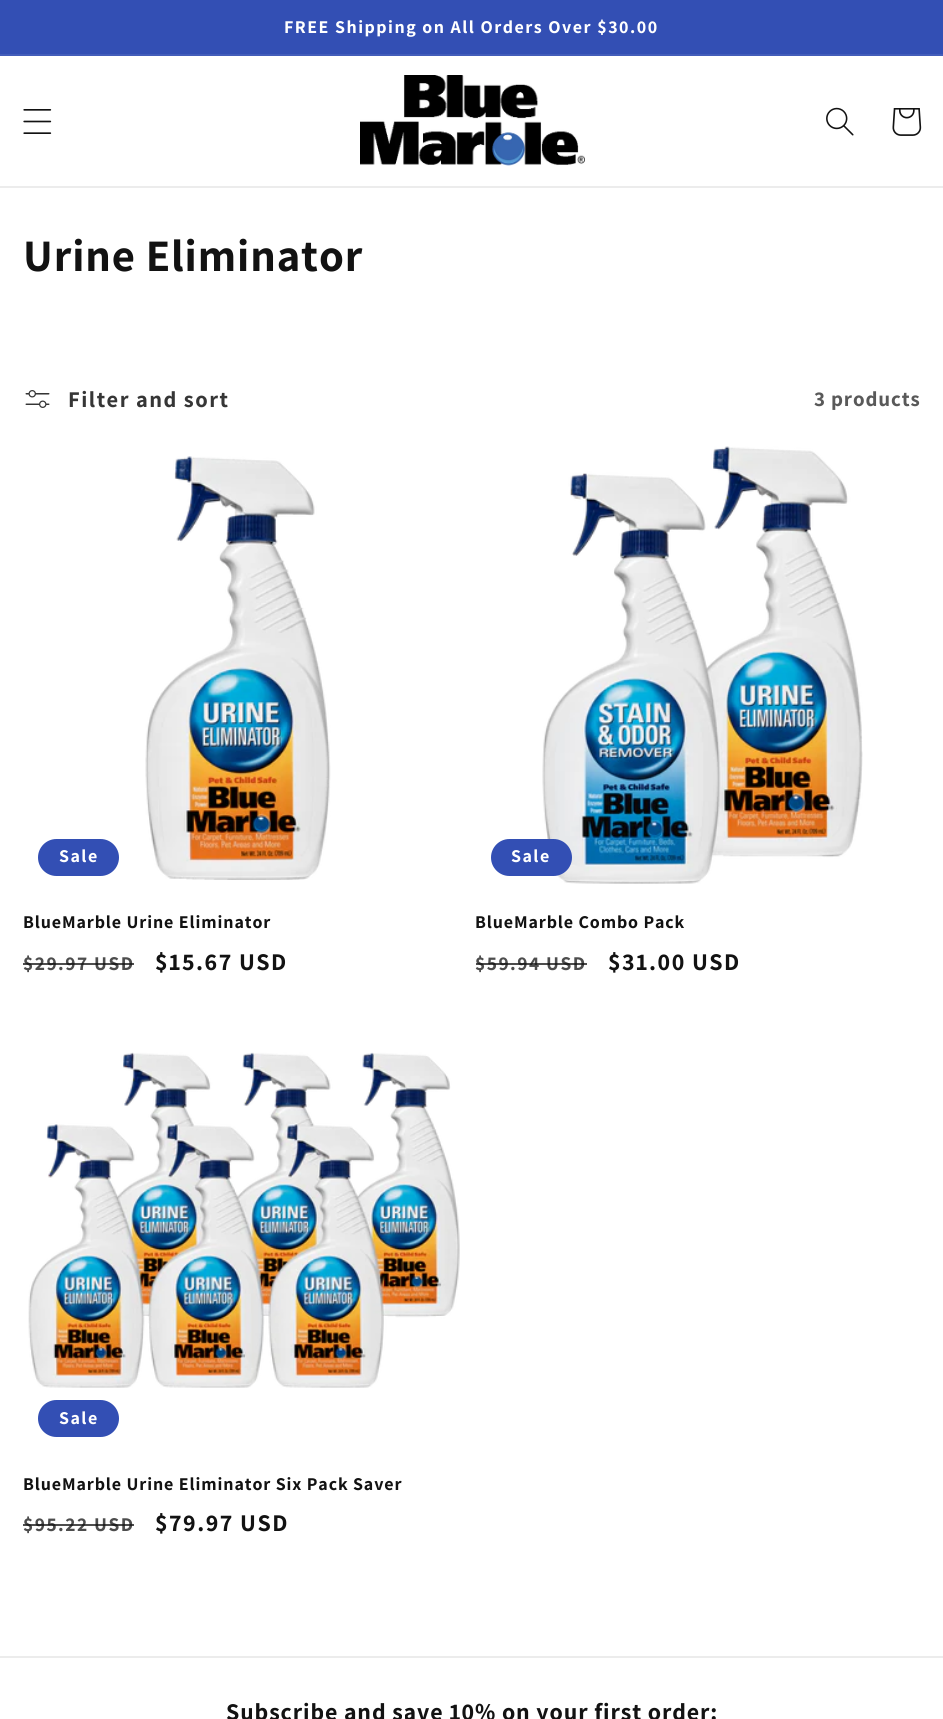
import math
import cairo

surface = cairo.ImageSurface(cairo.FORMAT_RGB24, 943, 1719)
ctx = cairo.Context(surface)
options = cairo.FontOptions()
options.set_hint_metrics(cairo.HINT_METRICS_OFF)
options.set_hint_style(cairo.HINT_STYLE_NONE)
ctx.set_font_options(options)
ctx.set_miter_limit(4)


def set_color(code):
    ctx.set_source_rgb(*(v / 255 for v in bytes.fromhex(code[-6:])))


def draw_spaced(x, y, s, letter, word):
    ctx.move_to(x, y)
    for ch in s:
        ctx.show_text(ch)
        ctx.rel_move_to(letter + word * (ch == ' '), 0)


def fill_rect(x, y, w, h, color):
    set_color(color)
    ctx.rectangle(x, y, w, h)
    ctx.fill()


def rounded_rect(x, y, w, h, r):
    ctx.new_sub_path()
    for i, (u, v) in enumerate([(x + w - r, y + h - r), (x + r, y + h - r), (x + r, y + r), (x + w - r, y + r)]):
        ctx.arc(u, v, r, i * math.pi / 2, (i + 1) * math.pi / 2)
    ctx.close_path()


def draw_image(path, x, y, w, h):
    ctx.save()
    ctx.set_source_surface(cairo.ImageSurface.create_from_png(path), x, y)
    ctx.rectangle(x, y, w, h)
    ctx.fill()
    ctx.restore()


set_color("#ffffff")
ctx.paint()
fill_rect(0, 0, 943, 54, "#334fb4")
fill_rect(0, 54, 943, 2, "#435dba")
ctx.select_font_face("Assistant", cairo.FONT_SLANT_NORMAL, cairo.FONT_WEIGHT_BOLD)
ctx.set_font_size(18)
set_color("#ffffff")
draw_spaced(284, 33, "FREE Shipping on All Orders Over $30.00", 1.5, 0)
fill_rect(0, 186, 943, 2, "#ececec")
draw_image("assets/img1.png", 23, 109, 29, 25)
draw_image("assets/img2.png", 360, 75, 225, 91)
draw_image("assets/img3.png", 826, 107, 28, 29)
draw_image("assets/img4.png", 892, 108, 30, 28)
ctx.set_font_size(45)
set_color("#121212")
draw_spaced(23, 271, "Urine Eliminator", 0.9, 0)
draw_image("assets/img5.png", 25, 390, 25, 18)
ctx.set_font_size(22.5)
set_color("#363636")
draw_spaced(68, 407, "Filter and sort", 1.5, 0)
ctx.set_font_size(21)
set_color("#595959")
draw_spaced(814, 406, "3 products", 0.9, 0)
set_color("#334fb4")
rounded_rect(39, 840, 79, 35, 17.5)
ctx.fill_preserve()
ctx.stroke()
ctx.set_font_size(18)
set_color("#ffffff")
draw_spaced(59, 862, "Sale", 1.5, 0)
draw_image("assets/img6.png", 145, 456, 186, 424)
set_color("#121212")
draw_spaced(23, 928, "BlueMarble Urine Eliminator", 0.9, 0)
ctx.set_font_size(19.5)
set_color("#4d4d4d")
draw_spaced(23, 970, "$29.97 USD", 1.5, 0)
ctx.set_source_rgba(0.071, 0.071, 0.071, 0.75)
ctx.rectangle(23, 963, 111, 2)
ctx.fill()
ctx.set_font_size(24)
set_color("#121212")
draw_spaced(155, 970, "$15.67 USD", 1.5, 0)
draw_image("assets/img7.png", 542, 446, 321, 438)
set_color("#334fb4")
rounded_rect(492, 840, 79, 35, 17.5)
ctx.fill_preserve()
ctx.stroke()
ctx.set_font_size(18)
set_color("#ffffff")
draw_spaced(511, 862, "Sale", 1.5, 0)
set_color("#121212")
draw_spaced(475, 928, "BlueMarble Combo Pack", 0.9, 0)
ctx.set_font_size(19.5)
set_color("#4d4d4d")
draw_spaced(475, 970, "$59.94 USD", 1.5, 0)
ctx.set_source_rgba(0.071, 0.071, 0.071, 0.75)
ctx.rectangle(476, 963, 111, 2)
ctx.fill()
ctx.set_font_size(24)
set_color("#121212")
draw_spaced(608, 970, "$31.00 USD", 1.5, 0)
draw_image("assets/img8.png", 28, 1052, 432, 336)
set_color("#334fb4")
rounded_rect(39, 1401, 79, 35, 17.5)
ctx.fill_preserve()
ctx.stroke()
ctx.set_font_size(18)
set_color("#ffffff")
draw_spaced(59, 1424, "Sale", 1.5, 0)
set_color("#121212")
draw_spaced(23, 1490, "BlueMarble Urine Eliminator Six Pack Saver", 0.9, 0)
ctx.set_font_size(19.5)
set_color("#4d4d4d")
draw_spaced(23, 1531, "$95.22 USD", 1.5, 0)
ctx.set_source_rgba(0.071, 0.071, 0.071, 0.75)
ctx.rectangle(23, 1524, 111, 2)
ctx.fill()
ctx.set_font_size(24)
set_color("#121212")
draw_spaced(155, 1531, "$79.97 USD", 1.5, 0)
fill_rect(0, 1656, 943, 2, "#ececec")
set_color("#121212")
draw_spaced(226, 1720, "Subscribe and save 10% on your first order:", 0.9, 0)
surface.write_to_png("output.png")
